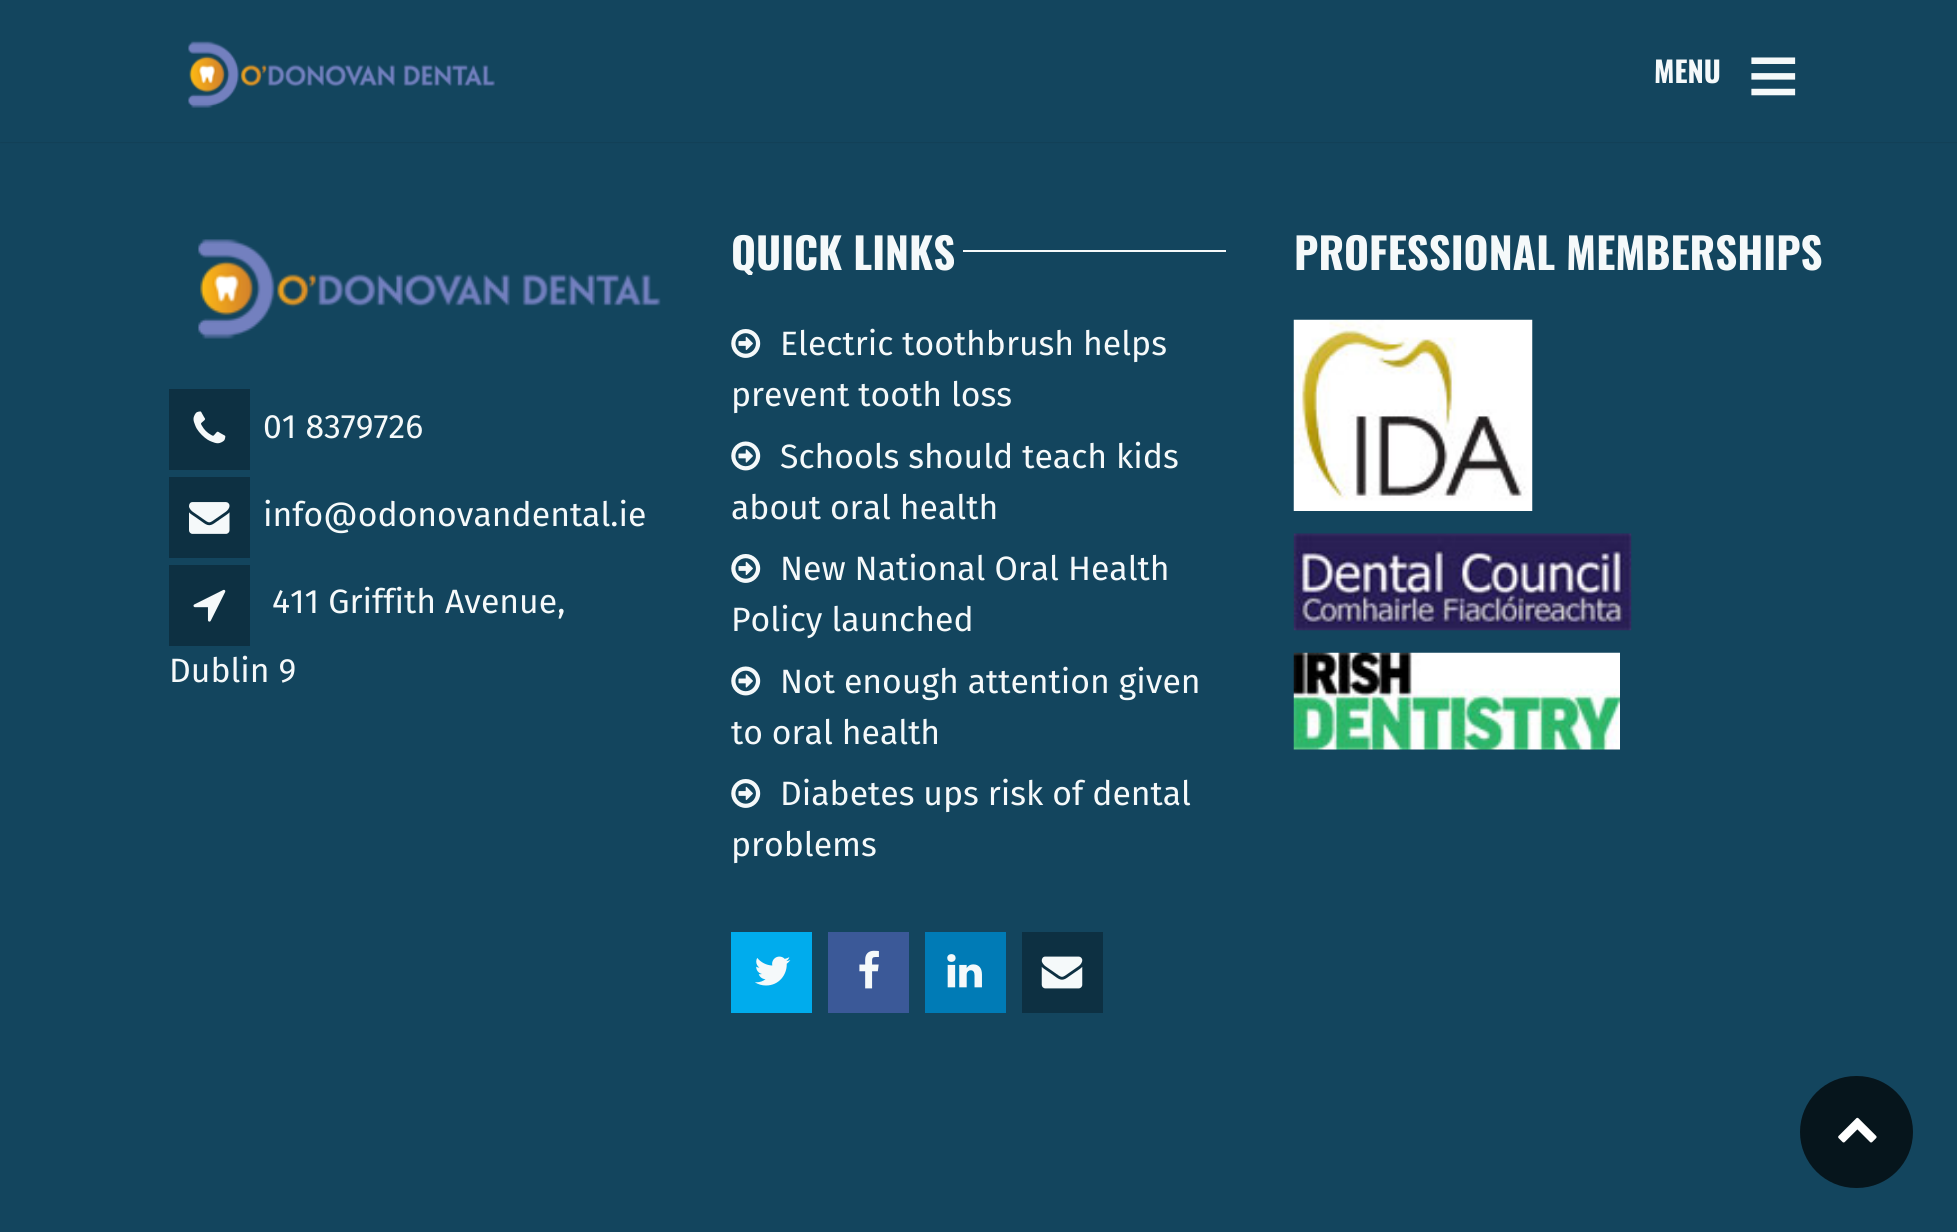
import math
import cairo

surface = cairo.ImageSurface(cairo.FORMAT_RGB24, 1957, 1232)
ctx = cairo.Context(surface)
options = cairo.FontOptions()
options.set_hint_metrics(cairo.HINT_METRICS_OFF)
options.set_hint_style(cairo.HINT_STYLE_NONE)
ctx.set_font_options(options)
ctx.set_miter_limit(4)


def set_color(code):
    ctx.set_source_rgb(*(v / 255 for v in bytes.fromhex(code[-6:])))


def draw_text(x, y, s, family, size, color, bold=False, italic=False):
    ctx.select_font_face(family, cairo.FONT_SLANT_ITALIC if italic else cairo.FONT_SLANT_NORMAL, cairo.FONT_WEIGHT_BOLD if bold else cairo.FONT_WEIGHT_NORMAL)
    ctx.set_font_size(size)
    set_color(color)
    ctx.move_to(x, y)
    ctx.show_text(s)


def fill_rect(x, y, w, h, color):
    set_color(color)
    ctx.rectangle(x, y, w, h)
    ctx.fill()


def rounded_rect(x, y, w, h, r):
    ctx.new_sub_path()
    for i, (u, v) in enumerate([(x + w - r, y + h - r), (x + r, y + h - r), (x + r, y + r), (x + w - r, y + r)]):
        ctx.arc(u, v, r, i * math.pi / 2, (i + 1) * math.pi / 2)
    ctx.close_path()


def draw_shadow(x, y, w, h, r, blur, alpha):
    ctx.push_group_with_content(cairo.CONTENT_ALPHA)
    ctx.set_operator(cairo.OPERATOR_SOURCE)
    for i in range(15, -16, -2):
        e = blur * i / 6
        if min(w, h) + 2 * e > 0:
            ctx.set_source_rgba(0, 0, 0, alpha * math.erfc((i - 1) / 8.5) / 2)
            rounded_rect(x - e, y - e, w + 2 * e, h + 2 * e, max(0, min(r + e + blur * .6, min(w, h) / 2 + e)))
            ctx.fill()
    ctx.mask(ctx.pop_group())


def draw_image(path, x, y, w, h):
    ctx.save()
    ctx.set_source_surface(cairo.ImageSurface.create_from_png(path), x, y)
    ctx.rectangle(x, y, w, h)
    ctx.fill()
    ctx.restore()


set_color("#13455e")
ctx.paint()
set_color("#000000")
draw_shadow(0, 0, 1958, 142, 0, 1, 0.2)
fill_rect(0, 0, 1957, 142, "#13455e")
draw_image("assets/img1.png", 188, 40, 307, 68)
draw_text(1654, 83, "MENU", "Oswald", 29, "#f5f9fa", bold=True)
draw_text(1747, 106, "≡", "Liberation Sans", 90, "#f5f9fa", bold=True)
ctx.save()
ctx.rectangle(731, 227, 495, 48)
ctx.clip()
draw_text(731, 270, "QUICK LINKS", "Oswald", 42.75, "#f5f9fa", bold=True)
ctx.restore()
fill_rect(963, 250, 263, 2, "#f5f9fa")
draw_image("assets/img2.png", 731, 329, 30, 29)
draw_text(780, 355, "Electric toothbrush helps", "Fira Sans", 33.75, "#f5f9fa")
draw_text(731, 406, "prevent tooth loss", "Fira Sans", 33.75, "#f5f9fa")
draw_image("assets/img3.png", 731, 441, 30, 30)
draw_text(780, 468, "Schools should teach kids", "Fira Sans", 33.75, "#f5f9fa")
draw_text(731, 519, "about oral health", "Fira Sans", 33.75, "#f5f9fa")
draw_image("assets/img2.png", 731, 554, 30, 29)
draw_text(780, 580, "New National Oral Health", "Fira Sans", 33.75, "#f5f9fa")
draw_text(731, 631, "Policy launched", "Fira Sans", 33.75, "#f5f9fa")
draw_image("assets/img3.png", 731, 666, 30, 30)
draw_text(780, 693, "Not enough attention given", "Fira Sans", 33.75, "#f5f9fa")
draw_text(731, 744, "to oral health", "Fira Sans", 33.75, "#f5f9fa")
draw_image("assets/img2.png", 731, 779, 30, 29)
draw_text(780, 805, "Diabetes ups risk of dental", "Fira Sans", 33.75, "#f5f9fa")
draw_text(731, 856, "problems", "Fira Sans", 33.75, "#f5f9fa")
fill_rect(731, 932, 81, 81, "#00aced")
draw_image("assets/img4.png", 755, 956, 36, 30)
fill_rect(828, 932, 81, 81, "#3b5998")
draw_image("assets/img5.png", 859, 950, 20, 39)
fill_rect(925, 932, 81, 81, "#007bb6")
draw_image("assets/img6.png", 947, 954, 35, 34)
fill_rect(1022, 932, 81, 81, "#0d3042")
draw_image("assets/img7.png", 1041, 956, 42, 33)
draw_text(1294, 270, "PROFESSIONAL MEMBERSHIPS", "Oswald", 42.75, "#f5f9fa", bold=True)
draw_image("assets/img8.png", 1293, 319, 240, 192)
draw_image("assets/img9.png", 1293, 533, 339, 98)
draw_image("assets/img10.png", 1293, 652, 327, 98)
draw_image("assets/img11.png", 198, 239, 463, 100)
fill_rect(169, 389, 81, 81, "#0d3042")
draw_image("assets/img12.png", 193, 411, 33, 33)
draw_text(263, 438, "01 8379726", "Fira Sans", 33.75, "#f5f9fa")
fill_rect(169, 477, 81, 81, "#0d3042")
draw_image("assets/img13.png", 189, 502, 41, 32)
draw_text(263, 526, "info@odonovandental.ie", "Fira Sans", 33.75, "#f5f9fa")
fill_rect(169, 565, 81, 81, "#0d3042")
draw_image("assets/img14.png", 193, 589, 33, 33)
draw_text(272, 613, "411 Griffith Avenue,", "Fira Sans", 33.75, "#f5f9fa")
draw_text(169, 682, "Dublin 9", "Fira Sans", 33.75, "#f5f9fa")
set_color("#06151c")
rounded_rect(1800, 1076, 113, 112, 56)
ctx.fill()
draw_image("assets/img15.png", 1838, 1117, 39, 26)
surface.write_to_png("output.png")
